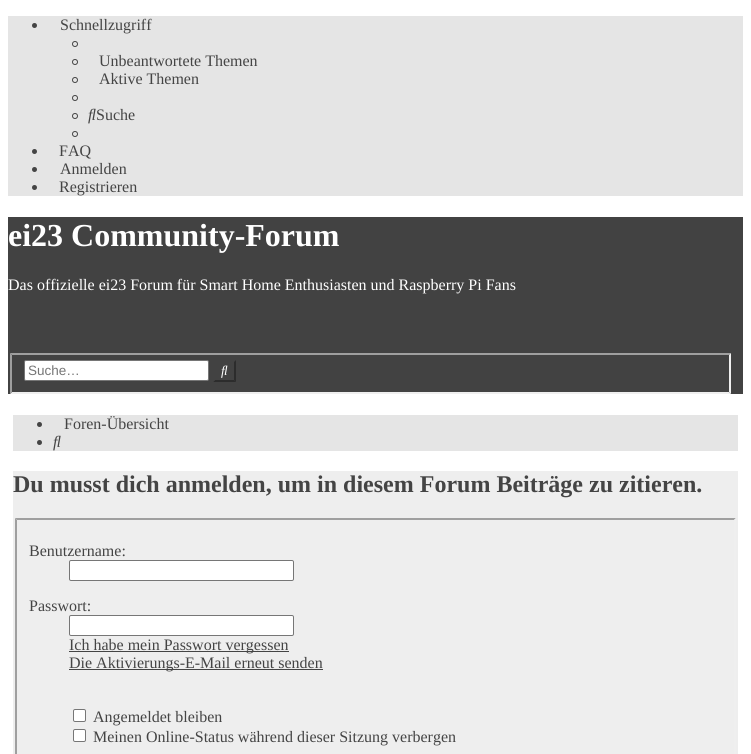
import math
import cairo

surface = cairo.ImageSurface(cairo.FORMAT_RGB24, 751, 754)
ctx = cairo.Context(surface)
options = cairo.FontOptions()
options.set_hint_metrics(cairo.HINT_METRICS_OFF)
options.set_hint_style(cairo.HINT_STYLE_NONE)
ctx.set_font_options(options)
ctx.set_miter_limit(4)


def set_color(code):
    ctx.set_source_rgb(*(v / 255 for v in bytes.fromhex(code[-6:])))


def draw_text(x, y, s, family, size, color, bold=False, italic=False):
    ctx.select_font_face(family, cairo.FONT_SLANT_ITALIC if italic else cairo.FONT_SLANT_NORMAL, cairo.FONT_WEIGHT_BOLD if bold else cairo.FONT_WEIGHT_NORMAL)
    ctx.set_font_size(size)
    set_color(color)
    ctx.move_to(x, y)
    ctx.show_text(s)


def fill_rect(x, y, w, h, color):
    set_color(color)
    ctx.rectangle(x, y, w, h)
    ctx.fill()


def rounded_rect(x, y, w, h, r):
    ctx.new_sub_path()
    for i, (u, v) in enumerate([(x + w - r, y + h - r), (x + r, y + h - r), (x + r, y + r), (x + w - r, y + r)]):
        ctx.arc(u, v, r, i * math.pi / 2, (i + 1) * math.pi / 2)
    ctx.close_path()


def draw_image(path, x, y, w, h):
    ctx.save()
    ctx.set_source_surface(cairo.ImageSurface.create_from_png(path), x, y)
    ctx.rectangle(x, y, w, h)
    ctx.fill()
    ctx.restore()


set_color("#ffffff")
ctx.paint()
fill_rect(8, 16, 735, 180, "#e5e5e5")
set_color("#444444")
ctx.arc(34.5, 25.5, 2.5, 0, 2 * math.pi)
ctx.fill()
draw_text(60, 30, "Schnellzugriff", "Liberation Serif", 16, "#444444")
ctx.new_path()
ctx.arc(75, 44, 2.5, 0, 2 * math.pi)
ctx.set_line_width(1)
ctx.stroke()
ctx.arc(75, 62, 2.5, 0, 2 * math.pi)
ctx.stroke()
draw_text(99, 66, "Unbeantwortete Themen", "Liberation Serif", 16, "#444444")
ctx.new_path()
ctx.arc(75, 80, 2.5, 0, 2 * math.pi)
ctx.stroke()
draw_text(99, 84, "Aktive Themen", "Liberation Serif", 16, "#444444")
ctx.new_path()
ctx.arc(75, 98, 2.5, 0, 2 * math.pi)
ctx.stroke()
ctx.arc(75, 116, 2.5, 0, 2 * math.pi)
ctx.stroke()
draw_image("assets/img1.png", 88, 108, 8, 16)
draw_text(96, 120, "Suche", "Liberation Serif", 16, "#444444")
ctx.new_path()
ctx.arc(75, 134, 2.5, 0, 2 * math.pi)
ctx.stroke()
ctx.arc(34.5, 151.5, 2.5, 0, 2 * math.pi)
ctx.fill()
draw_text(59, 156, "FAQ", "Liberation Serif", 16, "#444444")
ctx.new_path()
ctx.arc(34.5, 169.5, 2.5, 0, 2 * math.pi)
ctx.fill()
draw_text(60, 174, "Anmelden", "Liberation Serif", 16, "#444444")
ctx.new_path()
ctx.arc(34.5, 187.5, 2.5, 0, 2 * math.pi)
ctx.fill()
draw_text(59, 192, "Registrieren", "Liberation Serif", 16, "#444444")
fill_rect(8, 217, 735, 177, "#424242")
draw_text(8, 246, "ei23 Community-Forum", "Liberation Serif", 32, "#ffffff", bold=True)
draw_text(8, 290, "Das offizielle ei23 Forum für Smart Home Enthusiasten und Raspberry Pi Fans", "Liberation Serif", 16, "#ffffff")
set_color("#9f9f9f")
ctx.new_path()
ctx.move_to(10, 353)
ctx.line_to(731, 353)
ctx.line_to(729, 355)
ctx.line_to(12, 355)
ctx.close_path()
ctx.fill()
set_color("#efefef")
ctx.new_path()
ctx.move_to(731, 353)
ctx.line_to(731, 394)
ctx.line_to(729, 392)
ctx.line_to(729, 355)
ctx.close_path()
ctx.fill()
ctx.new_path()
ctx.move_to(731, 394)
ctx.line_to(10, 394)
ctx.line_to(12, 392)
ctx.line_to(729, 392)
ctx.close_path()
ctx.fill()
set_color("#9f9f9f")
ctx.new_path()
ctx.move_to(10, 394)
ctx.line_to(10, 353)
ctx.line_to(12, 355)
ctx.line_to(12, 392)
ctx.close_path()
ctx.fill()
set_color("#ffffff")
rounded_rect(24.5, 360.5, 184, 20, 1.5)
ctx.fill_preserve()
set_color("#767676")
ctx.stroke()
draw_text(28, 375, "Suche…", "Liberation Sans", 13.5, "#757575")
set_color("#2c2c2c")
ctx.new_path()
ctx.move_to(236, 360)
ctx.line_to(236, 382)
ctx.line_to(234, 380)
ctx.line_to(234, 362)
ctx.close_path()
ctx.fill()
ctx.new_path()
ctx.move_to(236, 382)
ctx.line_to(213, 382)
ctx.line_to(215, 380)
ctx.line_to(234, 380)
ctx.close_path()
ctx.fill()
set_color("#424242")
ctx.new_path()
ctx.move_to(213, 382)
ctx.line_to(213, 360)
ctx.line_to(215, 362)
ctx.line_to(215, 380)
ctx.close_path()
ctx.fill()
draw_image("assets/img2.png", 221, 365, 7, 13)
fill_rect(13, 415, 725, 36, "#e5e5e5")
set_color("#444444")
ctx.arc(39.5, 424.5, 2.5, 0, 2 * math.pi)
ctx.fill()
draw_text(64, 429, "Foren-Übersicht", "Liberation Serif", 16, "#444444")
ctx.new_path()
ctx.arc(39.5, 442.5, 2.5, 0, 2 * math.pi)
ctx.fill()
draw_image("assets/img1.png", 53, 435, 8, 16)
fill_rect(13, 471, 725, 283, "#eeeeee")
draw_text(13, 492, "Du musst dich anmelden, um in diesem Forum Beiträge zu zitieren.", "Liberation Serif", 24, "#444444", bold=True)
set_color("#9f9f9f")
ctx.new_path()
ctx.move_to(15, 518)
ctx.line_to(736, 518)
ctx.line_to(734, 520)
ctx.line_to(17, 520)
ctx.close_path()
ctx.fill()
set_color("#efefef")
ctx.new_path()
ctx.move_to(736, 518)
ctx.line_to(736, 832)
ctx.line_to(734, 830)
ctx.line_to(734, 520)
ctx.close_path()
ctx.fill()
set_color("#9f9f9f")
ctx.new_path()
ctx.move_to(15, 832)
ctx.line_to(15, 518)
ctx.line_to(17, 520)
ctx.line_to(17, 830)
ctx.close_path()
ctx.fill()
draw_text(29, 556, "Benutzername:", "Liberation Serif", 16, "#444444")
set_color("#ffffff")
rounded_rect(69.5, 560.5, 224, 20, 1.5)
ctx.fill_preserve()
set_color("#767676")
ctx.stroke()
draw_text(29, 611, "Passwort:", "Liberation Serif", 16, "#444444")
set_color("#ffffff")
rounded_rect(69.5, 615.5, 224, 20, 1.5)
ctx.fill_preserve()
set_color("#767676")
ctx.stroke()
fill_rect(69, 651, 220, 1, "#444444")
draw_text(69, 650, "Ich habe mein Passwort vergessen", "Liberation Serif", 16, "#444444")
fill_rect(69, 669, 254, 1, "#444444")
draw_text(69, 668, "Die Aktivierungs-E-Mail erneut senden", "Liberation Serif", 16, "#444444")
set_color("#ffffff")
rounded_rect(73.5, 709.5, 12, 12, 1.5)
ctx.fill_preserve()
set_color("#767676")
ctx.stroke()
draw_text(93, 722, "Angemeldet bleiben", "Liberation Serif", 16, "#444444")
set_color("#ffffff")
rounded_rect(73.5, 729.5, 12, 12, 1.5)
ctx.fill_preserve()
set_color("#767676")
ctx.stroke()
draw_text(93, 742, "Meinen Online-Status während dieser Sitzung verbergen", "Liberation Serif", 16, "#444444")
surface.write_to_png("output.png")
